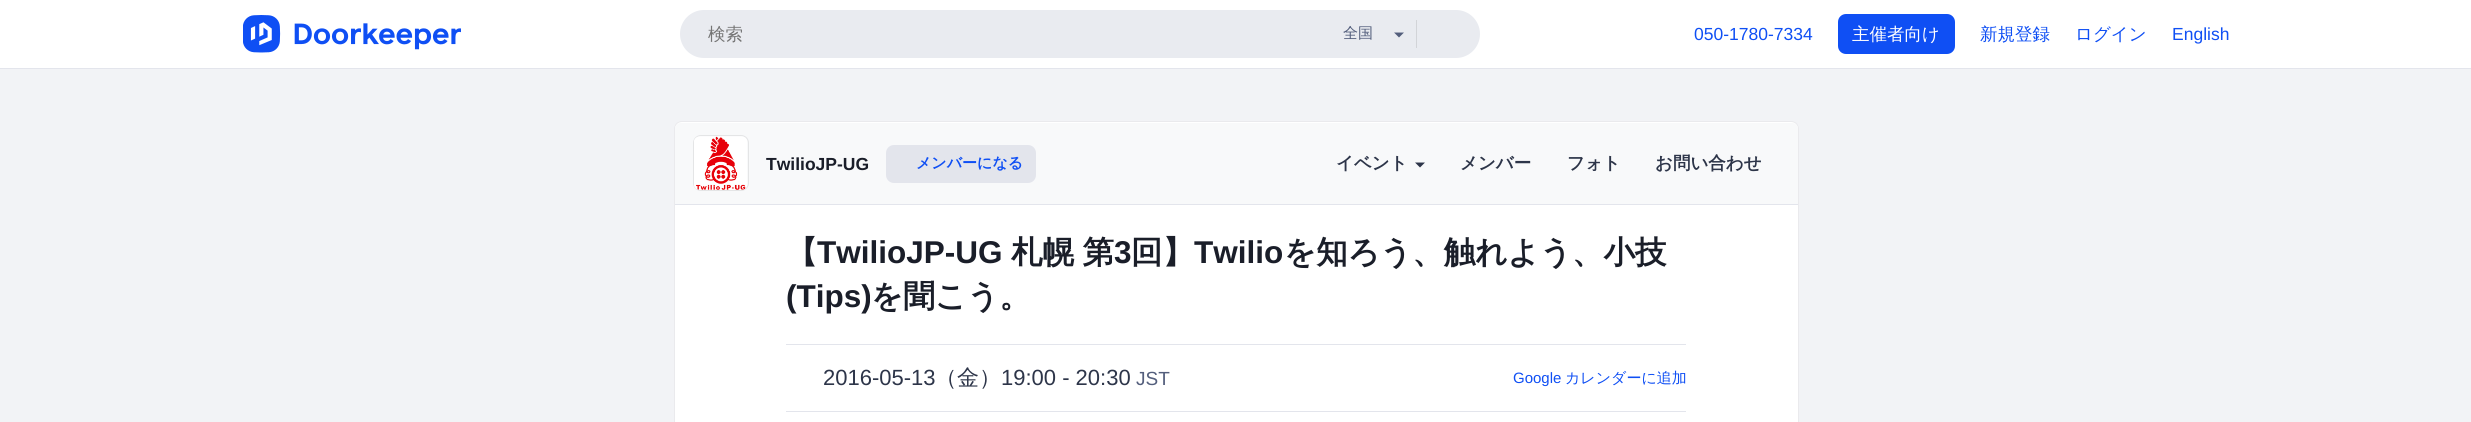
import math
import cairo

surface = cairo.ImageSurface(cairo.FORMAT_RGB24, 2471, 422)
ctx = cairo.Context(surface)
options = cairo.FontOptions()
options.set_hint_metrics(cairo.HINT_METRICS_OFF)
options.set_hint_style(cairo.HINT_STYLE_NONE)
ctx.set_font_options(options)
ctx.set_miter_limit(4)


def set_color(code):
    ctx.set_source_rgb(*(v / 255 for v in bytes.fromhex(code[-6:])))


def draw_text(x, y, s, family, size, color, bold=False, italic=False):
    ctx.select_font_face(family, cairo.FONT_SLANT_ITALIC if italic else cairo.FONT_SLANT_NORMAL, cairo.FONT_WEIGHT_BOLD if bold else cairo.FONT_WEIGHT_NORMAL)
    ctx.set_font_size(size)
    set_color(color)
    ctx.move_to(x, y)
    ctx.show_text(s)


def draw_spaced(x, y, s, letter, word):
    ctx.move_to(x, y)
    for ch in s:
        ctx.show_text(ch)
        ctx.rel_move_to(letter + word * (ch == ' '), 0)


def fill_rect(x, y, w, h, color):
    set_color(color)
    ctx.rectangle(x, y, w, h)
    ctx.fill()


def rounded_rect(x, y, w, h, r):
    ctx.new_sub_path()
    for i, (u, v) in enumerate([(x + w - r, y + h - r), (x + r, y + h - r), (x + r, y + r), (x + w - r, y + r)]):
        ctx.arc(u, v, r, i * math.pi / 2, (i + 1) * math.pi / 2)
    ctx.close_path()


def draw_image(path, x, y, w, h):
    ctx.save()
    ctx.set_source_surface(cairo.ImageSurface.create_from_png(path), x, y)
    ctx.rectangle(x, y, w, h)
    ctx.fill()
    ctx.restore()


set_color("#ffffff")
ctx.paint()
fill_rect(0, 68, 2471, 1, "#e3e5ec")
draw_image("assets/img1.png", 243, 15, 218, 38)
set_color("#e9ebf0")
rounded_rect(680, 10, 800, 48, 24)
ctx.fill()
draw_text(708, 40, "検索", "WenQuanYi Zen Hei Medium", 17.5, "#757575")
fill_rect(1416, 20, 1, 28, "#d2d4d8")
draw_text(1343, 38, "全国", "WenQuanYi Zen Hei Medium", 15, "#535e7c")
ctx.new_path()
ctx.move_to(1394, 32.5)
ctx.line_to(1404, 32.5)
ctx.line_to(1399, 37.5)
ctx.close_path()
ctx.fill()
draw_text(1694, 40, "050-1780-7334", "Liberation Sans", 17.5, "#0f4ff4")
rounded_rect(1838, 14, 117, 40, 8)
ctx.fill()
draw_text(1852, 40, "主催者向け", "WenQuanYi Zen Hei Medium", 17.5, "#ffffff")
draw_text(1980, 40, "新規登録", "WenQuanYi Zen Hei Medium", 17.5, "#0f4ff4")
draw_text(2075, 40, "ログイン", "WenQuanYi Zen Hei Medium", 17.5, "#0f4ff4")
draw_text(2172, 40, "English", "Liberation Sans", 17.5, "#0f4ff4")
fill_rect(0, 69, 2471, 353, "#f2f3f6")
set_color("#ffffff")
rounded_rect(674, 121, 1125, 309, 8)
ctx.fill()
rounded_rect(674.5, 121.5, 1124, 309, 7.5)
ctx.set_source_rgba(0.173, 0.192, 0.275, 0.1)
ctx.set_line_width(1)
ctx.stroke()
set_color("#f8f9fa")
ctx.new_path()
ctx.move_to(681, 123)
ctx.line_to(1792, 123)
ctx.curve_to(1795.5, 123, 1798, 125.5, 1798, 129)
ctx.line_to(1798, 205)
ctx.line_to(675, 205)
ctx.line_to(675, 129)
ctx.curve_to(675, 125.5, 677.5, 123, 681, 123)
ctx.close_path()
ctx.fill()
fill_rect(675, 204, 1123, 1, "#e3e5ec")
rounded_rect(693.5, 135.5, 55, 55, 7.5)
set_color("#e4e5e6")
ctx.stroke()
draw_image("assets/img2.png", 694, 136, 53, 54)
draw_text(766, 170, "TwilioJP-UG", "Liberation Sans", 17.5, "#1a1e29", bold=True)
set_color("#e3e5ec")
rounded_rect(886, 145, 150, 38, 8)
ctx.fill()
draw_text(916, 168, "メンバーになる", "WenQuanYi Zen Hei", 15, "#0f4ff4", bold=True)
draw_text(1336, 169, "イベント", "WenQuanYi Zen Hei", 17.5, "#2d3549", bold=True)
ctx.new_path()
ctx.move_to(1415, 162.5)
ctx.line_to(1425, 162.5)
ctx.line_to(1420, 167.5)
ctx.close_path()
ctx.fill()
draw_text(1460, 169, "メンバー", "WenQuanYi Zen Hei", 17.5, "#2d3549", bold=True)
draw_text(1567, 169, "フォト", "WenQuanYi Zen Hei", 17.5, "#2d3549", bold=True)
draw_text(1655, 169, "お問い合わせ", "WenQuanYi Zen Hei", 17.5, "#2d3549", bold=True)
draw_text(786, 263, "【", "WenQuanYi Zen Hei", 31.5, "#1a1e29", bold=True)
draw_text(817, 263, "TwilioJP-UG", "Liberation Sans", 31.5, "#1a1e29", bold=True)
ctx.select_font_face("WenQuanYi Zen Hei", cairo.FONT_SLANT_NORMAL, cairo.FONT_WEIGHT_BOLD)
draw_spaced(1011, 263, "札幌 第", 0, -1)
draw_text(1114, 263, "3", "Liberation Sans", 31.5, "#1a1e29", bold=True)
draw_text(1131, 263, "回】", "WenQuanYi Zen Hei", 31.5, "#1a1e29", bold=True)
draw_text(1194, 263, "Twilio", "Liberation Sans", 31.5, "#1a1e29", bold=True)
draw_text(1284, 263, "を知ろう、触れよう、小技", "WenQuanYi Zen Hei", 31.5, "#1a1e29", bold=True)
draw_text(786, 307, "(Tips)", "Liberation Sans", 31.5, "#1a1e29", bold=True)
draw_text(871, 307, "を聞こう。", "WenQuanYi Zen Hei", 31.5, "#1a1e29", bold=True)
fill_rect(786, 344, 900, 1, "#e3e5ec")
draw_text(823, 385, "2016-05-13", "Liberation Sans", 22, "#2d3549")
draw_text(935, 385, "（金）", "WenQuanYi Zen Hei Medium", 22, "#2d3549")
draw_text(1001, 385, "19:00 - 20:30", "Liberation Sans", 22, "#2d3549")
draw_text(1136, 385, "JST", "Liberation Sans", 19, "#535e7c")
draw_text(1513, 383, "Google", "Liberation Sans", 15, "#0f4ff4")
draw_text(1565, 383, "カレンダーに追加", "WenQuanYi Zen Hei Medium", 15, "#0f4ff4")
fill_rect(786, 411, 900, 1, "#e3e5ec")
surface.write_to_png("output.png")
